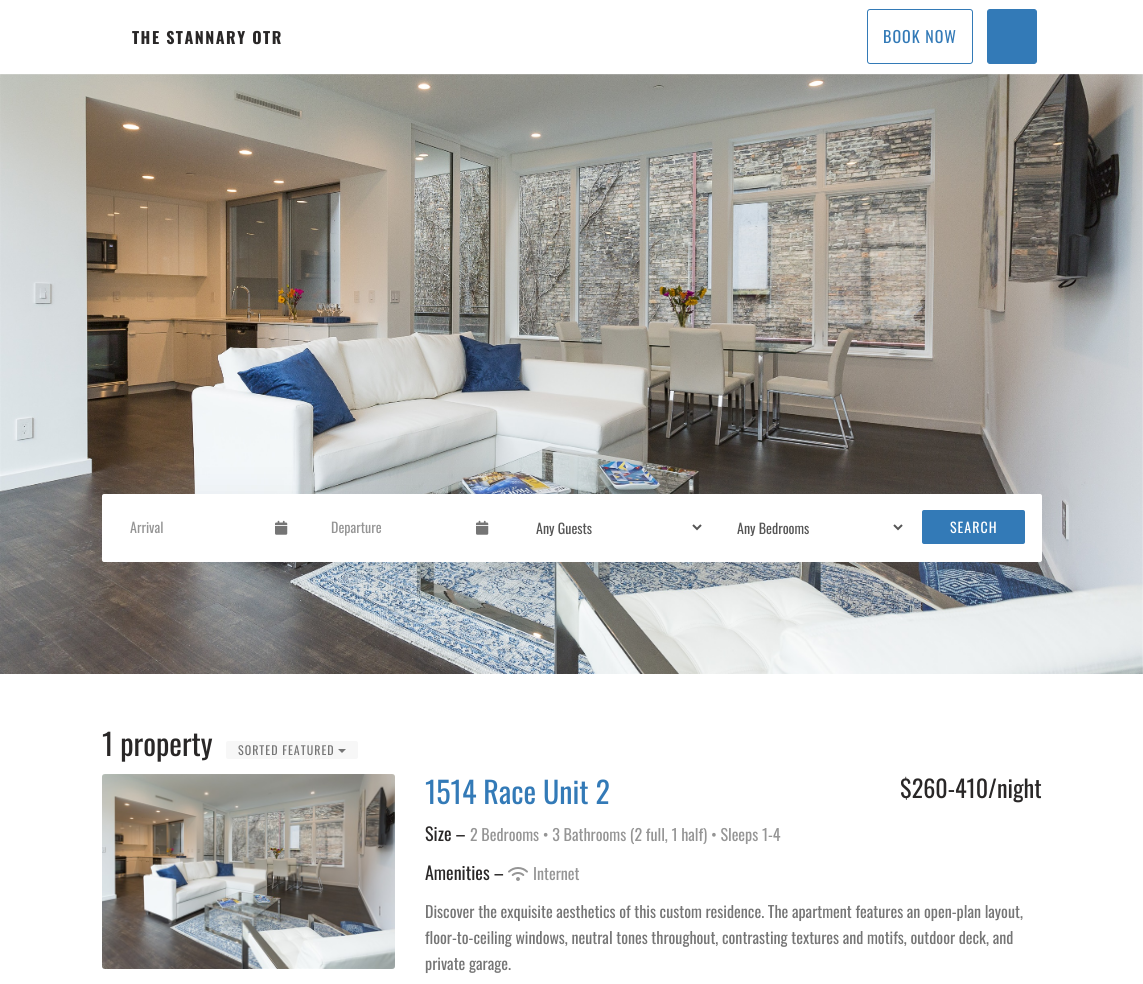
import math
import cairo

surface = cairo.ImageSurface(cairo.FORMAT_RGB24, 1143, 984)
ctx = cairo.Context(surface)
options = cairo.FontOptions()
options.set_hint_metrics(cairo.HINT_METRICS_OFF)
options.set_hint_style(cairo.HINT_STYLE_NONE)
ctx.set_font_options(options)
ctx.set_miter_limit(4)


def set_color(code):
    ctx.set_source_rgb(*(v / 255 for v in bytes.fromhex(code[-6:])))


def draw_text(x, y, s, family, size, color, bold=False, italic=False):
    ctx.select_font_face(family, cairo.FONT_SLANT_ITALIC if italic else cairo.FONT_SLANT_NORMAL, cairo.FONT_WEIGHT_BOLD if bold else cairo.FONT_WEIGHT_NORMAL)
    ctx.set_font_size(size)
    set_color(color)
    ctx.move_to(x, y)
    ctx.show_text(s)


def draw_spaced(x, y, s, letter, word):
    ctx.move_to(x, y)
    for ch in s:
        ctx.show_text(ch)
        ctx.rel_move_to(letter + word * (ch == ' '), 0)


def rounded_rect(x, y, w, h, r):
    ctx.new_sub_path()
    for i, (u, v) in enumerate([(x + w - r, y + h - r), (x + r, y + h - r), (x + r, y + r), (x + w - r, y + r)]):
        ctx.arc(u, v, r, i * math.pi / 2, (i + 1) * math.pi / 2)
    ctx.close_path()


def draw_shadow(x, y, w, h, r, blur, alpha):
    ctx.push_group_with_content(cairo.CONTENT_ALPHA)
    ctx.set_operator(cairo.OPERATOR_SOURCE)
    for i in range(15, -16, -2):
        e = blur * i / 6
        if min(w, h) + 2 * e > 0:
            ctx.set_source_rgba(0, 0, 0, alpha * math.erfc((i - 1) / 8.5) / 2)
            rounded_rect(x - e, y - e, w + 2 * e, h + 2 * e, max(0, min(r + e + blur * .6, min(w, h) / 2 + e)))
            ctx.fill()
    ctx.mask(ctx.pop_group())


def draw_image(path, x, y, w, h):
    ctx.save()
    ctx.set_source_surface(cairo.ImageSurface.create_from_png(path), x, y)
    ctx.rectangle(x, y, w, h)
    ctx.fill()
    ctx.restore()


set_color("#ffffff")
ctx.paint()
ctx.select_font_face("Oswald", cairo.FONT_SLANT_NORMAL, cairo.FONT_WEIGHT_BOLD)
ctx.set_font_size(16)
set_color("#292727")
draw_spaced(132, 44, "THE STANNARY OTR", 1.5, 0)
rounded_rect(867.5, 9.5, 105, 54, 2.5)
set_color("#337ab7")
ctx.set_line_width(1)
ctx.stroke()
ctx.select_font_face("Oswald")
draw_spaced(883, 43, "BOOK NOW", 1, 0)
rounded_rect(987.5, 9.5, 49, 54, 2.5)
ctx.fill_preserve()
ctx.stroke()
draw_image("assets/img1.png", 0, 74, 1143, 600)
set_color("#8c98a4")
draw_shadow(102, 494, 940, 68, 2, 17.5, 0.12)
set_color("#ffffff")
rounded_rect(102, 494, 940, 68, 2)
ctx.fill()
draw_text(130, 533, "Arrival", "Oswald", 14, "#959595")
draw_image("assets/img2.png", 275, 520, 13, 15)
draw_text(331, 533, "Departure", "Oswald", 14, "#959595")
draw_image("assets/img2.png", 476, 520, 13, 15)
ctx.new_path()
ctx.move_to(693, 525)
ctx.line_to(697, 529)
ctx.line_to(701, 525)
set_color("#555555")
ctx.set_line_width(2)
ctx.stroke()
draw_text(536, 534, "Any Guests", "Oswald", 14, "#555555")
ctx.new_path()
ctx.move_to(894, 525)
ctx.line_to(898, 529)
ctx.line_to(902, 525)
ctx.stroke()
draw_text(737, 534, "Any Bedrooms", "Oswald", 14, "#555555")
set_color("#337ab7")
rounded_rect(922, 510, 103, 34, 2)
ctx.fill()
set_color("#ffffff")
draw_spaced(950, 533, "SEARCH", 1, 0)
draw_text(102, 756, "1 property", "Oswald", 30, "#292727")
set_color("#f7f7f7")
rounded_rect(226, 741, 132, 18, 2)
ctx.fill()
ctx.set_font_size(12)
set_color("#757575")
draw_spaced(238, 755, "SORTED FEATURED", 1, 0)
ctx.new_path()
ctx.move_to(338, 749)
ctx.line_to(346, 749)
ctx.line_to(342, 753)
ctx.close_path()
ctx.fill()
draw_image("assets/img3.png", 102, 774, 293, 195)
draw_text(425, 804, "1514 Race Unit 2", "Oswald", 30, "#337ab7")
draw_text(900, 798, "$260-410/night", "Oswald", 24, "#292727")
draw_text(425, 841, "Size –", "Oswald", 18, "#292727")
draw_text(470, 841, "2 Bedrooms • 3 Bathrooms (2 full, 1 half) • Sleeps 1-4", "Oswald", 16, "#959595")
draw_text(425, 880, "Amenities –", "Oswald", 18, "#292727")
draw_image("assets/img4.png", 508, 867, 20, 14)
draw_text(533, 880, "Internet", "Oswald", 16, "#959595")
draw_text(425, 918, "Discover the exquisite aesthetics of this custom residence. The apartment features an open-plan layout,", "Oswald", 16, "#757575")
draw_text(425, 944, "floor-to-ceiling windows, neutral tones throughout, contrasting textures and motifs, outdoor deck, and", "Oswald", 16, "#757575")
draw_text(425, 970, "private garage.", "Oswald", 16, "#757575")
surface.write_to_png("output.png")
